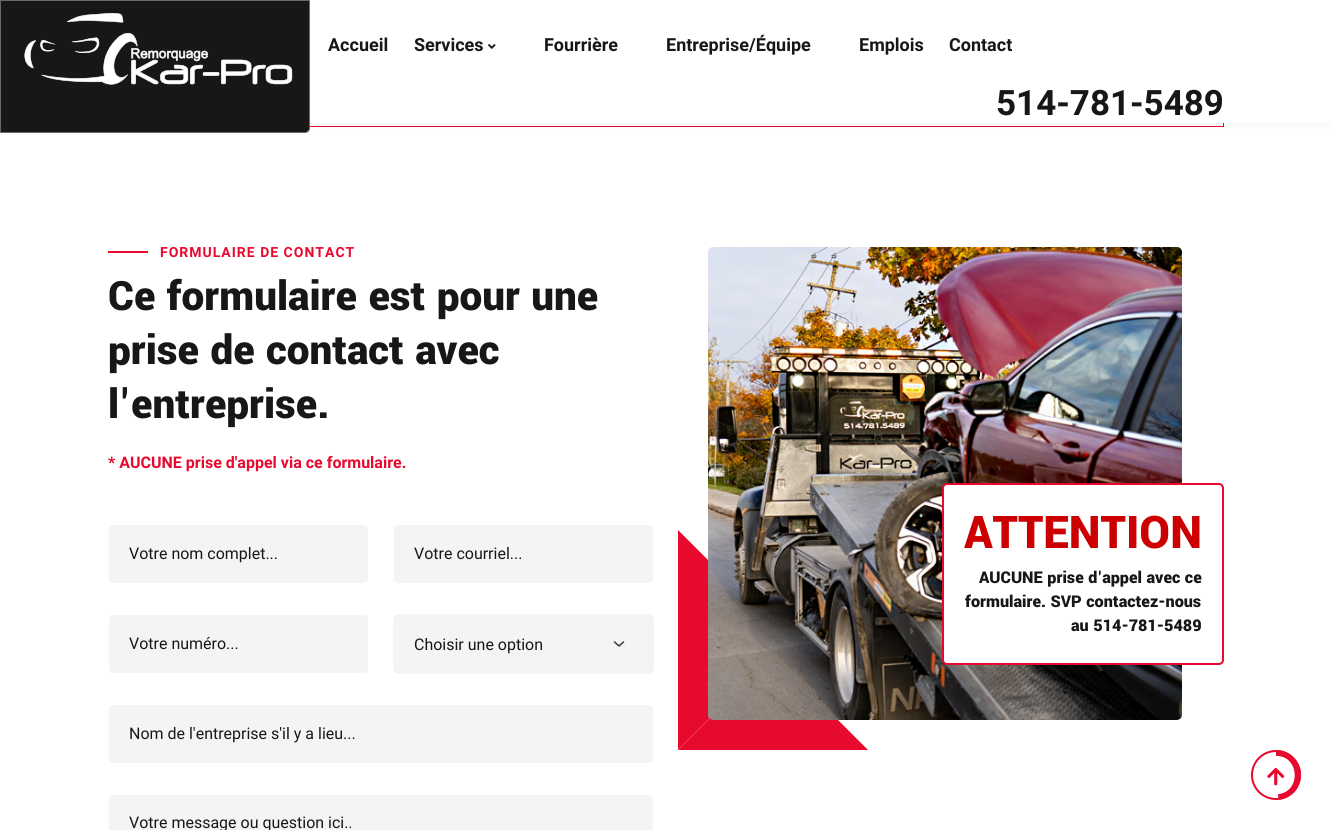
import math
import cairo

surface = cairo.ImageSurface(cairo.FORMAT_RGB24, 1331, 830)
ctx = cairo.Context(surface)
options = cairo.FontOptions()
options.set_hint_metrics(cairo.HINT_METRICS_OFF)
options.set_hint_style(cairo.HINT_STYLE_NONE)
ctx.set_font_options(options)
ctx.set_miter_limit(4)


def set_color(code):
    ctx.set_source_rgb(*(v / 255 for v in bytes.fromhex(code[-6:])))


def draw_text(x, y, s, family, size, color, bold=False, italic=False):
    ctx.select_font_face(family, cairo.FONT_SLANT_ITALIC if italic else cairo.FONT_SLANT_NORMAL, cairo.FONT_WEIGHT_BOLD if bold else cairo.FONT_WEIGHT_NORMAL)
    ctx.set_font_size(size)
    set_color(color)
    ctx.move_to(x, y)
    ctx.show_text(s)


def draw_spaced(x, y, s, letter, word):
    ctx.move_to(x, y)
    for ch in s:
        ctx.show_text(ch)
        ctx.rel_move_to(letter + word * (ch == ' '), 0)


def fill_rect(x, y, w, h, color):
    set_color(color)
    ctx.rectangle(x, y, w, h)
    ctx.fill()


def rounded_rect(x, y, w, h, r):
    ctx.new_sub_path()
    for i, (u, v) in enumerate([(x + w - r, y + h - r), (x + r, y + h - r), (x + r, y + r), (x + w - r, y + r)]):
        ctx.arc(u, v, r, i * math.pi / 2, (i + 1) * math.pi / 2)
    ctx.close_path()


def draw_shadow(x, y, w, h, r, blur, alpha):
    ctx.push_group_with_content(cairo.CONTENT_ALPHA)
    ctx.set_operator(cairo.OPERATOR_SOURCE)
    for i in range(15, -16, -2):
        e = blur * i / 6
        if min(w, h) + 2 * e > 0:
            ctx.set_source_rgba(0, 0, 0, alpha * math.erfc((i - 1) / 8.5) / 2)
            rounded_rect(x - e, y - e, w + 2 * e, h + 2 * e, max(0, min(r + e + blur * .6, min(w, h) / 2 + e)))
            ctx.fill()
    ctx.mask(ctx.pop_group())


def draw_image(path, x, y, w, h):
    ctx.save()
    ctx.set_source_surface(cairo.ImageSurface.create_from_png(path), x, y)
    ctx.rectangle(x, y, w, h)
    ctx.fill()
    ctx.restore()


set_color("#ffffff")
ctx.paint()
ctx.rectangle(108.5, -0.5, 1115, 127)
set_color("#e8092e")
ctx.set_line_width(1)
ctx.stroke()
set_color("#000000")
draw_shadow(0, 0, 1331, 123, 0, 5, 0.07)
fill_rect(310, 0, 1021, 123, "#ffffff")
set_color("#171717")
ctx.new_path()
ctx.move_to(0.5, 0.5)
ctx.line_to(309.5, 0.5)
ctx.line_to(309.5, 128)
ctx.curve_to(309.5, 130.5, 307.5, 132.5, 305, 132.5)
ctx.line_to(0.5, 132.5)
ctx.close_path()
ctx.fill_preserve()
set_color("#696969")
ctx.stroke()
draw_image("assets/img1.png", 24, 12, 269, 73)
draw_text(328, 51, "Accueil", "Roboto", 18, "#171717", bold=True)
draw_text(414, 51, "Services", "Roboto", 18, "#171717", bold=True)
draw_image("assets/img2.png", 488, 44, 8, 5)
draw_text(544, 51, "Fourrière", "Roboto", 18, "#171717", bold=True)
draw_text(666, 51, "Entreprise/Équipe", "Roboto", 18, "#171717", bold=True)
draw_text(859, 51, "Emplois", "Roboto", 18, "#171717", bold=True)
draw_text(949, 51, "Contact", "Roboto", 18, "#171717", bold=True)
draw_text(996, 115, "514-781-5489", "Roboto", 35, "#171717", bold=True)
fill_rect(108, 251, 40, 2, "#e8092e")
ctx.set_font_size(14)
draw_spaced(160, 257, "FORMULAIRE DE CONTACT", 1, 0)
draw_text(108, 310, "Ce formulaire est pour une", "Yantramanav Black", 45, "#171717")
draw_text(108, 364, "prise de contact avec", "Yantramanav Black", 45, "#171717")
draw_text(108, 418, "l'entreprise.", "Yantramanav Black", 45, "#171717")
draw_text(108, 468, "* AUCUNE prise d'appel via ce formulaire.", "Roboto", 16, "#e8092e", bold=True)
set_color("#f4f4f4")
rounded_rect(109, 525, 259, 58, 4)
ctx.fill()
draw_text(129, 559, "Votre nom complet...", "Roboto", 16, "#171717")
set_color("#f4f4f4")
rounded_rect(394, 525, 259, 58, 4)
ctx.fill()
draw_text(414, 559, "Votre courriel...", "Roboto", 16, "#171717")
set_color("#f4f4f4")
rounded_rect(109, 615, 259, 58, 4)
ctx.fill()
draw_text(129, 649, "Votre numéro...", "Roboto", 16, "#171717")
set_color("#f4f4f4")
rounded_rect(393, 614, 261, 60, 5)
ctx.fill()
ctx.new_path()
ctx.move_to(614.5, 642)
ctx.line_to(619, 646)
ctx.line_to(623.5, 642)
set_color("#343a40")
ctx.set_line_width(1.5)
ctx.set_line_cap(cairo.LINE_CAP_ROUND)
ctx.set_line_join(cairo.LINE_JOIN_ROUND)
ctx.stroke()
draw_text(414, 650, "Choisir une option", "Roboto", 16, "#171717")
set_color("#f4f4f4")
rounded_rect(109, 705, 544, 58, 4)
ctx.fill()
draw_text(129, 739, "Nom de l'entreprise s'il y a lieu...", "Roboto", 16, "#171717")
set_color("#f4f4f4")
rounded_rect(109, 795, 544, 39, 4)
ctx.fill()
draw_text(129, 828, "Votre message ou question ici..", "Roboto", 16, "#171717")
set_color("#e8092e")
ctx.new_path()
ctx.move_to(868, 750)
ctx.line_to(678, 750)
ctx.line_to(718, 710)
ctx.line_to(828, 710)
ctx.close_path()
ctx.fill()
ctx.new_path()
ctx.move_to(678, 750)
ctx.line_to(678, 530)
ctx.line_to(718, 570)
ctx.line_to(718, 710)
ctx.close_path()
ctx.fill()
draw_image("assets/img3.png", 708, 247, 474, 473)
set_color("#ffffff")
rounded_rect(943, 484, 280, 180, 4)
ctx.fill_preserve()
set_color("#e8092e")
ctx.set_line_width(2)
ctx.set_line_cap(cairo.LINE_CAP_BUTT)
ctx.set_line_join(cairo.LINE_JOIN_MITER)
ctx.stroke()
draw_text(964, 548, "ATTENTION", "Yantramanav Black", 50, "#cc0000")
draw_text(979, 583, "AUCUNE prise d'appel avec ce", "Yantramanav Black", 18, "#171717")
draw_text(965, 607, "formulaire. SVP contactez-nous", "Yantramanav Black", 18, "#171717")
draw_text(1071, 631, "au 514-781-5489", "Yantramanav Black", 18, "#171717")
ctx.save()
rounded_rect(1251, 750, 50, 50, 25)
ctx.clip()
ctx.new_path()
ctx.move_to(1276, 751)
ctx.curve_to(1306, 751, 1308, 796, 1278.5, 799)
set_color("#e8092e")
ctx.set_line_width(9.8)
ctx.stroke()
ctx.restore()
ctx.arc(1276, 775, 24, 0, 2 * math.pi)
set_color("#e8092e")
ctx.stroke()
draw_image("assets/img4.png", 1267, 767, 18, 19)
surface.write_to_png("output.png")
